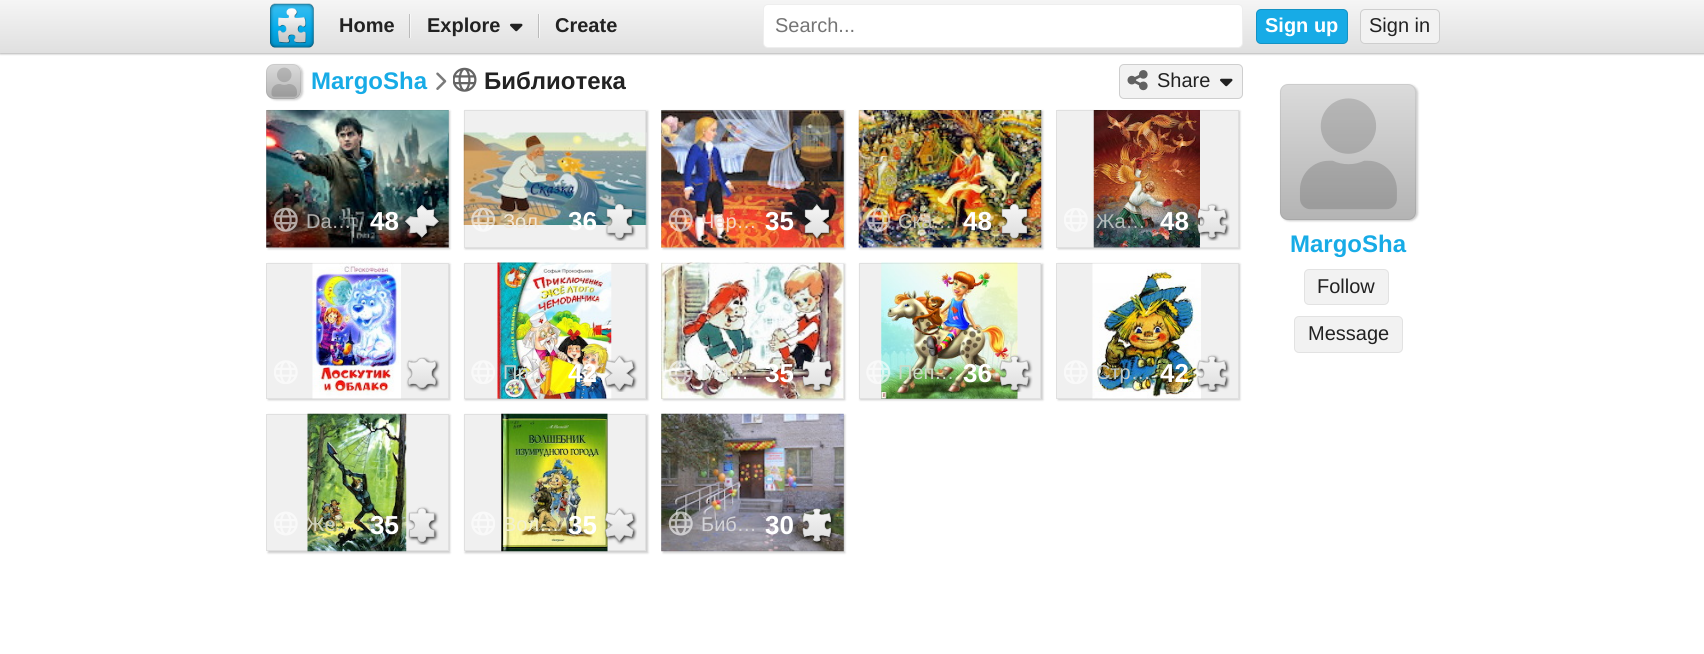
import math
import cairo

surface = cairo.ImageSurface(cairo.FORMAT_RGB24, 1704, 654)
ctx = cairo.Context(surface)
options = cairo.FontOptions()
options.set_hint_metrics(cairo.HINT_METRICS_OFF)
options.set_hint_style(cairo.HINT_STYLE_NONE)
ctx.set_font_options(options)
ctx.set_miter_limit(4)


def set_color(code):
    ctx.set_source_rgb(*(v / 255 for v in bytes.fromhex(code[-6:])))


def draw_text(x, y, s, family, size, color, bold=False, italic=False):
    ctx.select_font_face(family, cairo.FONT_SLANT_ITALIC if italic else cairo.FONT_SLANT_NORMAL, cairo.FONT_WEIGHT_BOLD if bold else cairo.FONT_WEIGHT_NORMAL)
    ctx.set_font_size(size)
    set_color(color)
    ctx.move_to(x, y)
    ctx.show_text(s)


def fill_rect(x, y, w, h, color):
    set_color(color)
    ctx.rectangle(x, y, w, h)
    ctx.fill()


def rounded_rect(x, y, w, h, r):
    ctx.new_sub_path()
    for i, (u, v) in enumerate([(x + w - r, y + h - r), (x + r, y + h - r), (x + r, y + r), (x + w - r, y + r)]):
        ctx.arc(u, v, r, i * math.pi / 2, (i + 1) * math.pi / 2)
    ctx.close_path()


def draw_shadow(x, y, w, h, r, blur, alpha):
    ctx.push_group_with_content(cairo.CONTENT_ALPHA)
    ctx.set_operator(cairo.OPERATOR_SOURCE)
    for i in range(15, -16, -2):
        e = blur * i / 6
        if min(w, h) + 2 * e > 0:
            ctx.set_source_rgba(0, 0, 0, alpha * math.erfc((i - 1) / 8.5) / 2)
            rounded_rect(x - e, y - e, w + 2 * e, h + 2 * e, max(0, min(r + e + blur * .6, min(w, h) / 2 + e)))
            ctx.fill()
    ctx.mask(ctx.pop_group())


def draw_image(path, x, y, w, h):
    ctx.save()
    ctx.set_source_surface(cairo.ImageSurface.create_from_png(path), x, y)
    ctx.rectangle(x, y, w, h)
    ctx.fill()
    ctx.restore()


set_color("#ffffff")
ctx.paint()
set_color("#000000")
draw_shadow(0, 1, 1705, 53, 0, 1, 0.3)
gradient = cairo.LinearGradient(853, 0, 853, 53)
gradient.add_color_stop_rgba(0, 0.961, 0.961, 0.961, 1)
gradient.add_color_stop_rgba(1, 0.878, 0.878, 0.878, 1)
ctx.set_source(gradient)
ctx.rectangle(0, 0, 1704, 53)
ctx.fill()
gradient = cairo.LinearGradient(853, 0, 853, 53)
gradient.add_color_stop_rgba(0, 0.769, 0.769, 0.769, 1)
gradient.add_color_stop_rgba(1, 0.702, 0.702, 0.702, 1)
ctx.set_source(gradient)
ctx.rectangle(538, 14, 1, 24)
ctx.fill()
gradient = cairo.LinearGradient(853, 0, 853, 53)
gradient.add_color_stop_rgba(0, 0.984, 0.984, 0.984, 1)
gradient.add_color_stop_rgba(1, 0.953, 0.953, 0.953, 1)
ctx.set_source(gradient)
ctx.rectangle(539, 14, 1, 24)
ctx.fill()
gradient = cairo.LinearGradient(853, 0, 853, 53)
gradient.add_color_stop_rgba(0, 0.769, 0.769, 0.769, 1)
gradient.add_color_stop_rgba(1, 0.702, 0.702, 0.702, 1)
ctx.set_source(gradient)
ctx.rectangle(409, 14, 1, 24)
ctx.fill()
gradient = cairo.LinearGradient(853, 0, 853, 53)
gradient.add_color_stop_rgba(0, 0.984, 0.984, 0.984, 1)
gradient.add_color_stop_rgba(1, 0.953, 0.953, 0.953, 1)
ctx.set_source(gradient)
ctx.rectangle(410, 14, 1, 24)
ctx.fill()
draw_image("assets/img1.png", 270, 3, 44, 45)
draw_text(339, 32, "Home", "Liberation Sans", 20, "#222222", bold=True)
draw_text(427, 32, "Explore", "Liberation Sans", 20, "#222222", bold=True)
draw_image("assets/img2.png", 510, 23, 13, 9)
draw_text(555, 32, "Create", "Liberation Sans", 20, "#222222", bold=True)
set_color("#ffffff")
rounded_rect(763, 4, 480, 44, 5)
ctx.fill()
rounded_rect(763.5, 4.5, 479, 43, 4.5)
ctx.set_source_rgba(0, 0, 0, 0.07)
ctx.set_line_width(1)
ctx.stroke()
draw_text(775, 32, "Search...", "Liberation Sans", 20, "#757575")
set_color("#17abe6")
rounded_rect(1256, 9, 92, 35, 5)
ctx.fill()
rounded_rect(1256.5, 9.5, 91, 34, 4.5)
ctx.set_source_rgba(0, 0, 0, 0.15)
ctx.stroke()
draw_text(1265, 32, "Sign up", "Liberation Sans", 20, "#ffffff", bold=True)
set_color("#f2f2f2")
rounded_rect(1360, 9, 80, 35, 5)
ctx.fill()
rounded_rect(1360.5, 9.5, 79, 34, 4.5)
ctx.set_source_rgba(0, 0, 0, 0.15)
ctx.stroke()
draw_text(1369, 32, "Sign in", "Liberation Sans", 20, "#222222")
ctx.save()
ctx.set_fill_rule(cairo.FILL_RULE_EVEN_ODD)
ctx.new_path()
ctx.move_to(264, 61)
ctx.line_to(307, 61)
ctx.line_to(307, 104)
ctx.line_to(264, 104)
ctx.close_path()
ctx.move_to(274, 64)
ctx.line_to(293, 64)
ctx.curve_to(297.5, 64, 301, 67.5, 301, 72)
ctx.line_to(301, 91)
ctx.curve_to(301, 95.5, 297.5, 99, 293, 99)
ctx.line_to(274, 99)
ctx.curve_to(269.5, 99, 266, 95.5, 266, 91)
ctx.line_to(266, 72)
ctx.curve_to(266, 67.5, 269.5, 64, 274, 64)
ctx.close_path()
ctx.clip()
set_color("#000000")
draw_shadow(268, 65, 35, 35, 8, 1, 0.2)
ctx.restore()
draw_image("assets/img3.png", 266, 64, 35, 35)
rounded_rect(266.5, 64.5, 34, 34, 7.5)
ctx.set_source_rgba(0, 0, 0, 0.07)
ctx.stroke()
draw_text(311, 89, "MargoSha", "Liberation Sans", 24, "#17abe6", bold=True)
draw_image("assets/img4.png", 436, 72, 11, 18)
draw_image("assets/img5.png", 453, 67, 24, 25)
draw_text(484, 89, "Библиотека", "Liberation Sans", 24, "#222222", bold=True)
set_color("#f2f2f2")
rounded_rect(1119, 64, 124, 35, 5)
ctx.fill()
rounded_rect(1119.5, 64.5, 123, 34, 4.5)
ctx.set_source_rgba(0, 0, 0, 0.15)
ctx.stroke()
draw_image("assets/img6.png", 1127, 70, 21, 21)
draw_text(1157, 87, "Share", "Liberation Sans", 20, "#222222")
draw_image("assets/img7.png", 1220, 78, 13, 9)
set_color("#000000")
draw_shadow(268, 111, 182, 138, 0, 1, 0.2)
fill_rect(266, 110, 183, 138, "#f0f0f0")
draw_image("assets/img8.png", 266, 110, 183, 138)
ctx.rectangle(266.5, 110.5, 182, 137)
ctx.set_source_rgba(0, 0, 0, 0.07)
ctx.stroke()
draw_image("assets/img9.png", 273, 207, 25, 25)
draw_text(306, 228, "Da…", "Liberation Sans", 20, "#b1afad")
draw_text(370, 230, "48", "Liberation Sans", 26, "#ffffff", bold=True)
draw_image("assets/img10.png", 405, 204, 36, 36)
set_color("#000000")
draw_shadow(465, 111, 183, 138, 0, 1, 0.2)
fill_rect(464, 110, 182, 138, "#f0f0f0")
draw_image("assets/img11.png", 463, 132, 184, 93)
ctx.rectangle(464.5, 110.5, 181, 137)
ctx.set_source_rgba(0, 0, 0, 0.07)
ctx.stroke()
draw_image("assets/img12.png", 471, 207, 25, 25)
draw_text(503, 228, "Зол", "Liberation Sans", 20, "#f0e7da")
draw_text(568, 230, "36", "Liberation Sans", 26, "#ffffff", bold=True)
draw_image("assets/img13.png", 605, 203, 31, 38)
set_color("#000000")
draw_shadow(663, 111, 182, 138, 0, 1, 0.2)
fill_rect(661, 110, 183, 138, "#f0f0f0")
draw_image("assets/img14.png", 661, 110, 183, 138)
ctx.rectangle(661.5, 110.5, 182, 137)
ctx.set_source_rgba(0, 0, 0, 0.07)
ctx.stroke()
draw_image("assets/img15.png", 668, 207, 25, 25)
draw_text(701, 228, "Чёр…", "Liberation Sans", 20, "#f5d3c8")
draw_text(765, 230, "35", "Liberation Sans", 26, "#ffffff", bold=True)
draw_image("assets/img16.png", 803, 204, 30, 37)
set_color("#000000")
draw_shadow(860, 111, 183, 138, 0, 1, 0.2)
fill_rect(859, 247, 182, 1, "#f0f0f0")
draw_image("assets/img17.png", 858, 110, 184, 138)
ctx.rectangle(859.5, 110.5, 181, 137)
ctx.set_source_rgba(0, 0, 0, 0.07)
ctx.stroke()
draw_image("assets/img18.png", 866, 207, 25, 25)
draw_text(898, 228, "Ска…", "Liberation Sans", 20, "#c9c5bc")
draw_text(963, 230, "48", "Liberation Sans", 26, "#ffffff", bold=True)
draw_image("assets/img19.png", 1000, 203, 31, 38)
set_color("#000000")
draw_shadow(1058, 111, 182, 138, 0, 1, 0.2)
fill_rect(1056, 110, 183, 138, "#f0f0f0")
draw_image("assets/img20.png", 1093, 110, 107, 138)
ctx.rectangle(1056.5, 110.5, 182, 137)
ctx.set_source_rgba(0, 0, 0, 0.07)
ctx.stroke()
draw_image("assets/img21.png", 1064, 208, 24, 24)
draw_text(1096, 228, "Жа…", "Liberation Sans", 20, "#b4bcbc")
draw_text(1160, 230, "48", "Liberation Sans", 26, "#ffffff", bold=True)
draw_image("assets/img22.png", 1197, 203, 33, 38)
set_color("#000000")
draw_shadow(268, 264, 182, 136, 0, 1, 0.2)
fill_rect(266, 263, 183, 136, "#f0f0f0")
draw_image("assets/img23.png", 312, 262, 89, 137)
ctx.rectangle(266.5, 263.5, 182, 135)
ctx.set_source_rgba(0, 0, 0, 0.07)
ctx.stroke()
draw_image("assets/img24.png", 274, 360, 24, 24)
draw_image("assets/img25.png", 406, 357, 34, 35)
set_color("#000000")
draw_shadow(465, 264, 183, 136, 0, 1, 0.2)
fill_rect(464, 263, 182, 136, "#f0f0f0")
draw_image("assets/img26.png", 497, 262, 115, 137)
ctx.rectangle(464.5, 263.5, 181, 135)
ctx.set_source_rgba(0, 0, 0, 0.07)
ctx.stroke()
draw_image("assets/img27.png", 471, 360, 24, 24)
draw_text(503, 379, "Пр…", "Liberation Sans", 20, "#c4d7d5")
draw_text(568, 382, "42", "Liberation Sans", 26, "#ffffff", bold=True)
draw_image("assets/img28.png", 604, 355, 34, 37)
set_color("#000000")
draw_shadow(663, 264, 182, 136, 0, 1, 0.2)
fill_rect(661, 263, 183, 136, "#f0f0f0")
draw_image("assets/img29.png", 661, 262, 183, 137)
ctx.rectangle(661.5, 263.5, 182, 135)
ctx.set_source_rgba(0, 0, 0, 0.07)
ctx.stroke()
draw_image("assets/img30.png", 668, 360, 25, 25)
draw_text(701, 379, "Ма…", "Liberation Sans", 20, "#e9e9e6")
draw_text(765, 382, "35", "Liberation Sans", 26, "#ffffff", bold=True)
draw_image("assets/img31.png", 801, 354, 34, 38)
set_color("#000000")
draw_shadow(860, 264, 183, 136, 0, 1, 0.2)
fill_rect(859, 263, 182, 136, "#f0f0f0")
draw_image("assets/img32.png", 881, 262, 137, 137)
ctx.rectangle(859.5, 263.5, 181, 135)
ctx.set_source_rgba(0, 0, 0, 0.07)
ctx.stroke()
draw_image("assets/img33.png", 866, 360, 25, 24)
draw_text(898, 379, "Пеп…", "Liberation Sans", 20, "#cbdac7")
draw_text(963, 382, "36", "Liberation Sans", 26, "#ffffff", bold=True)
draw_image("assets/img34.png", 999, 354, 34, 38)
set_color("#000000")
draw_shadow(1058, 264, 182, 136, 0, 1, 0.2)
fill_rect(1056, 263, 183, 136, "#f0f0f0")
draw_image("assets/img35.png", 1092, 263, 109, 136)
ctx.rectangle(1056.5, 263.5, 182, 135)
ctx.set_source_rgba(0, 0, 0, 0.07)
ctx.stroke()
draw_image("assets/img24.png", 1064, 360, 24, 24)
draw_text(1096, 379, "Стр…", "Liberation Sans", 20, "#bfc9c9")
draw_text(1160, 382, "42", "Liberation Sans", 26, "#ffffff", bold=True)
draw_image("assets/img36.png", 1196, 354, 34, 38)
set_color("#000000")
draw_shadow(268, 415, 182, 138, 0, 1, 0.2)
fill_rect(266, 414, 183, 137, "#f0f0f0")
draw_image("assets/img37.png", 307, 413, 100, 139)
ctx.rectangle(266.5, 414.5, 182, 136)
ctx.set_source_rgba(0, 0, 0, 0.07)
ctx.stroke()
draw_image("assets/img38.png", 274, 511, 24, 25)
draw_text(306, 531, "Же…", "Liberation Sans", 20, "#d0d2bc")
draw_text(370, 534, "35", "Liberation Sans", 26, "#ffffff", bold=True)
draw_image("assets/img39.png", 407, 506, 32, 39)
set_color("#000000")
draw_shadow(465, 415, 183, 138, 0, 1, 0.2)
fill_rect(464, 414, 182, 137, "#f0f0f0")
draw_image("assets/img40.png", 501, 413, 107, 139)
ctx.rectangle(464.5, 414.5, 181, 136)
ctx.set_source_rgba(0, 0, 0, 0.07)
ctx.stroke()
draw_image("assets/img41.png", 471, 511, 24, 25)
draw_text(503, 531, "Вол…", "Liberation Sans", 20, "#f2f0d2")
draw_text(568, 534, "35", "Liberation Sans", 26, "#ffffff", bold=True)
draw_image("assets/img42.png", 604, 507, 33, 38)
set_color("#000000")
draw_shadow(663, 415, 182, 138, 0, 1, 0.2)
draw_image("assets/img43.png", 661, 413, 183, 139)
ctx.rectangle(661.5, 414.5, 182, 136)
ctx.set_source_rgba(0, 0, 0, 0.07)
ctx.stroke()
draw_image("assets/img44.png", 668, 511, 25, 25)
draw_text(701, 531, "Биб…", "Liberation Sans", 20, "#d3d3d8")
draw_text(765, 534, "30", "Liberation Sans", 26, "#ffffff", bold=True)
draw_image("assets/img45.png", 801, 507, 34, 38)
set_color("#000000")
draw_shadow(1281, 85, 137, 136, 8, 1, 0.2)
draw_image("assets/img46.png", 1280, 84, 136, 136)
rounded_rect(1280.5, 84.5, 135, 135, 7.5)
ctx.set_source_rgba(0, 0, 0, 0.07)
ctx.stroke()
draw_text(1290, 252, "MargoSha", "Liberation Sans", 24, "#17abe6", bold=True)
set_color("#f2f2f2")
rounded_rect(1304, 269, 85, 36, 5)
ctx.fill()
rounded_rect(1304.5, 269.5, 84, 35, 4.5)
ctx.set_source_rgba(0, 0, 0, 0.07)
ctx.stroke()
draw_text(1317, 293, "Follow", "Liberation Sans", 20, "#222222")
set_color("#f2f2f2")
rounded_rect(1294, 316, 109, 37, 5)
ctx.fill()
rounded_rect(1294.5, 316.5, 108, 36, 4.5)
ctx.set_source_rgba(0, 0, 0, 0.07)
ctx.stroke()
draw_text(1308, 340, "Message", "Liberation Sans", 20, "#222222")
surface.write_to_png("output.png")
